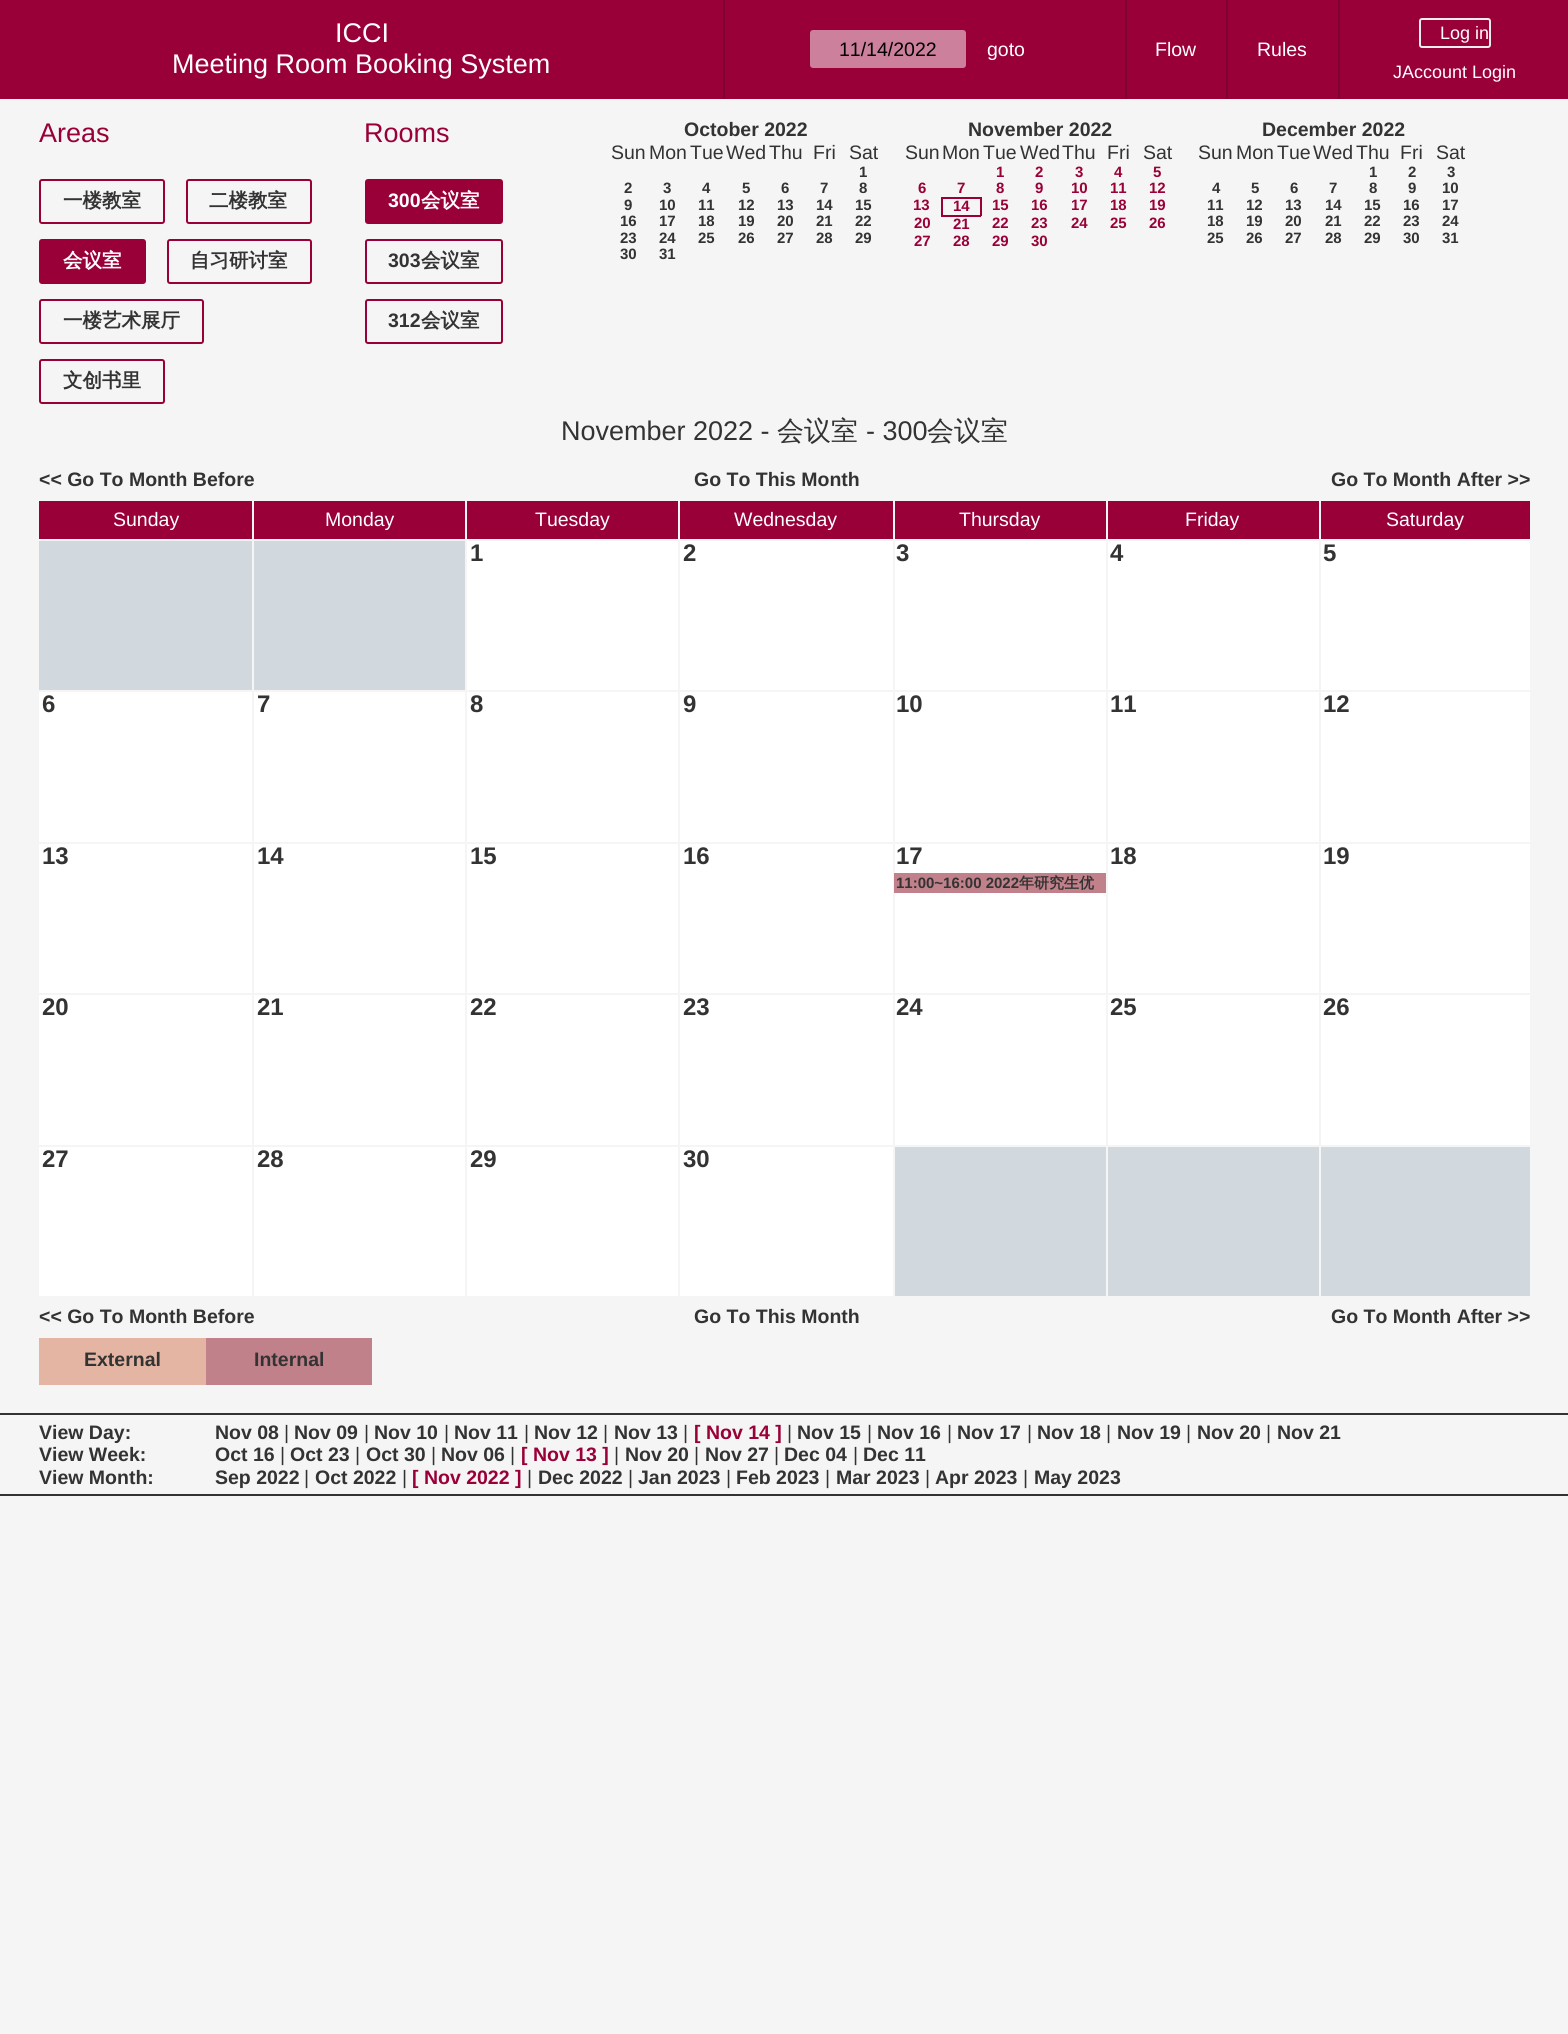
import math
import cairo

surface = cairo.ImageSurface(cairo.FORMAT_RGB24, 1568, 2034)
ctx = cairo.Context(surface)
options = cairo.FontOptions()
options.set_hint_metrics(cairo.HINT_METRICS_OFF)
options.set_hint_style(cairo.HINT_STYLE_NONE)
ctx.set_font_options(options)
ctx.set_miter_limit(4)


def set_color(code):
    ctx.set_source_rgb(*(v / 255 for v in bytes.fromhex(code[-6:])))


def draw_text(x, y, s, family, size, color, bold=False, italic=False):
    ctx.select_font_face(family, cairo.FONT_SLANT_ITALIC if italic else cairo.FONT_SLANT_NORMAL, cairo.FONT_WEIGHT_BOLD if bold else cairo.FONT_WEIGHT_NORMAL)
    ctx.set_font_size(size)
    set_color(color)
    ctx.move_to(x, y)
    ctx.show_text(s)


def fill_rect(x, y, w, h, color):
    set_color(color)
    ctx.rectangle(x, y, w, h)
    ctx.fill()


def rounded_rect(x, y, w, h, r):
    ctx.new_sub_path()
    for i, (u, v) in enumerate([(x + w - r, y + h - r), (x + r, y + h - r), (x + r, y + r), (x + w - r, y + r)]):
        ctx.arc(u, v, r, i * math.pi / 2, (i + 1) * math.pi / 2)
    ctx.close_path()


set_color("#f5f5f5")
ctx.paint()
fill_rect(0, 0, 1568, 99, "#9a0038")
draw_text(335, 42, "ICCI", "Liberation Sans", 27, "#ffffff")
draw_text(172, 73, "Meeting Room Booking System", "Liberation Sans", 27, "#ffffff")
fill_rect(723, 0, 2, 99, "#7e0331")
set_color("#cd809c")
rounded_rect(810, 30, 156, 38, 3)
ctx.fill()
draw_text(839, 56, "11/14/2022", "Liberation Sans", 19.5, "#000000")
draw_text(987, 56, "goto", "Liberation Sans", 19.5, "#ffffff")
fill_rect(1125, 0, 2, 99, "#7e0331")
draw_text(1155, 56, "Flow", "Liberation Sans", 19.5, "#ffffff")
fill_rect(1226, 0, 2, 99, "#7e0331")
draw_text(1257, 56, "Rules", "Liberation Sans", 19.5, "#ffffff")
fill_rect(1338, 0, 2, 99, "#7e0331")
rounded_rect(1420, 19, 70, 28, 2)
set_color("#eeeeee")
ctx.stroke()
draw_text(1440, 39, "Log in", "Liberation Sans", 18, "#ffffff")
draw_text(1393, 78, "JAccount Login", "Liberation Sans", 18, "#ffffff")
draw_text(39, 142, "Areas", "Liberation Sans", 27, "#9a0038")
rounded_rect(40, 180, 124, 43, 2)
ctx.stroke()
draw_text(63, 207, "一楼教室", "WenQuanYi Zen Hei", 19.5, "#333333", bold=True)
rounded_rect(187, 180, 124, 43, 2)
set_color("#9a0038")
ctx.stroke()
draw_text(209, 207, "二楼教室", "WenQuanYi Zen Hei", 19.5, "#333333", bold=True)
set_color("#9a0038")
rounded_rect(40, 240, 105, 43, 2)
ctx.fill_preserve()
ctx.stroke()
draw_text(63, 267, "会议室", "WenQuanYi Zen Hei", 19.5, "#ffffff", bold=True)
rounded_rect(168, 240, 143, 43, 2)
set_color("#9a0038")
ctx.stroke()
draw_text(190, 267, "自习研讨室", "WenQuanYi Zen Hei", 19.5, "#333333", bold=True)
rounded_rect(40, 300, 163, 43, 2)
set_color("#9a0038")
ctx.stroke()
draw_text(63, 327, "一楼艺术展厅", "WenQuanYi Zen Hei", 19.5, "#333333", bold=True)
rounded_rect(40, 360, 124, 43, 2)
set_color("#9a0038")
ctx.stroke()
draw_text(63, 387, "文创书里", "WenQuanYi Zen Hei", 19.5, "#333333", bold=True)
draw_text(364, 142, "Rooms", "Liberation Sans", 27, "#9a0038")
rounded_rect(366, 180, 136, 43, 2)
ctx.fill_preserve()
ctx.stroke()
draw_text(388, 207, "300", "Liberation Sans", 19.5, "#ffffff", bold=True)
draw_text(421, 207, "会议室", "WenQuanYi Zen Hei", 19.5, "#ffffff", bold=True)
rounded_rect(366, 240, 136, 43, 2)
set_color("#9a0038")
ctx.stroke()
draw_text(388, 267, "303", "Liberation Sans", 19.5, "#333333", bold=True)
draw_text(421, 267, "会议室", "WenQuanYi Zen Hei", 19.5, "#333333", bold=True)
rounded_rect(366, 300, 136, 43, 2)
set_color("#9a0038")
ctx.stroke()
draw_text(388, 327, "312", "Liberation Sans", 19.5, "#333333", bold=True)
draw_text(421, 327, "会议室", "WenQuanYi Zen Hei", 19.5, "#333333", bold=True)
draw_text(684, 136, "October 2022", "Liberation Sans", 19.5, "#333333", bold=True)
draw_text(611, 159, "Sun", "Liberation Sans", 19.5, "#333333")
draw_text(649, 159, "Mon", "Liberation Sans", 19.5, "#333333")
draw_text(690, 159, "Tue", "Liberation Sans", 19.5, "#333333")
draw_text(726, 159, "Wed", "Liberation Sans", 19.5, "#333333")
draw_text(769, 159, "Thu", "Liberation Sans", 19.5, "#333333")
draw_text(813, 159, "Fri", "Liberation Sans", 19.5, "#333333")
draw_text(849, 159, "Sat", "Liberation Sans", 19.5, "#333333")
draw_text(859, 177, "1", "Liberation Sans", 15, "#333333", bold=True)
draw_text(624, 193, "2", "Liberation Sans", 15, "#333333", bold=True)
draw_text(663, 193, "3", "Liberation Sans", 15, "#333333", bold=True)
draw_text(702, 193, "4", "Liberation Sans", 15, "#333333", bold=True)
draw_text(742, 193, "5", "Liberation Sans", 15, "#333333", bold=True)
draw_text(781, 193, "6", "Liberation Sans", 15, "#333333", bold=True)
draw_text(820, 193, "7", "Liberation Sans", 15, "#333333", bold=True)
draw_text(859, 193, "8", "Liberation Sans", 15, "#333333", bold=True)
draw_text(624, 210, "9", "Liberation Sans", 15, "#333333", bold=True)
draw_text(659, 210, "10", "Liberation Sans", 15, "#333333", bold=True)
draw_text(698, 210, "11", "Liberation Sans", 15, "#333333", bold=True)
draw_text(738, 210, "12", "Liberation Sans", 15, "#333333", bold=True)
draw_text(777, 210, "13", "Liberation Sans", 15, "#333333", bold=True)
draw_text(816, 210, "14", "Liberation Sans", 15, "#333333", bold=True)
draw_text(855, 210, "15", "Liberation Sans", 15, "#333333", bold=True)
draw_text(620, 226, "16", "Liberation Sans", 15, "#333333", bold=True)
draw_text(659, 226, "17", "Liberation Sans", 15, "#333333", bold=True)
draw_text(698, 226, "18", "Liberation Sans", 15, "#333333", bold=True)
draw_text(738, 226, "19", "Liberation Sans", 15, "#333333", bold=True)
draw_text(777, 226, "20", "Liberation Sans", 15, "#333333", bold=True)
draw_text(816, 226, "21", "Liberation Sans", 15, "#333333", bold=True)
draw_text(855, 226, "22", "Liberation Sans", 15, "#333333", bold=True)
draw_text(620, 243, "23", "Liberation Sans", 15, "#333333", bold=True)
draw_text(659, 243, "24", "Liberation Sans", 15, "#333333", bold=True)
draw_text(698, 243, "25", "Liberation Sans", 15, "#333333", bold=True)
draw_text(738, 243, "26", "Liberation Sans", 15, "#333333", bold=True)
draw_text(777, 243, "27", "Liberation Sans", 15, "#333333", bold=True)
draw_text(816, 243, "28", "Liberation Sans", 15, "#333333", bold=True)
draw_text(855, 243, "29", "Liberation Sans", 15, "#333333", bold=True)
draw_text(620, 259, "30", "Liberation Sans", 15, "#333333", bold=True)
draw_text(659, 259, "31", "Liberation Sans", 15, "#333333", bold=True)
draw_text(968, 136, "November 2022", "Liberation Sans", 19.5, "#333333", bold=True)
draw_text(905, 159, "Sun", "Liberation Sans", 19.5, "#333333")
draw_text(942, 159, "Mon", "Liberation Sans", 19.5, "#333333")
draw_text(983, 159, "Tue", "Liberation Sans", 19.5, "#333333")
draw_text(1020, 159, "Wed", "Liberation Sans", 19.5, "#333333")
draw_text(1062, 159, "Thu", "Liberation Sans", 19.5, "#333333")
draw_text(1107, 159, "Fri", "Liberation Sans", 19.5, "#333333")
draw_text(1143, 159, "Sat", "Liberation Sans", 19.5, "#333333")
draw_text(996, 177, "1", "Liberation Sans", 15, "#9a0038", bold=True)
draw_text(1035, 177, "2", "Liberation Sans", 15, "#9a0038", bold=True)
draw_text(1075, 177, "3", "Liberation Sans", 15, "#9a0038", bold=True)
draw_text(1114, 177, "4", "Liberation Sans", 15, "#9a0038", bold=True)
draw_text(1153, 177, "5", "Liberation Sans", 15, "#9a0038", bold=True)
draw_text(918, 193, "6", "Liberation Sans", 15, "#9a0038", bold=True)
draw_text(957, 193, "7", "Liberation Sans", 15, "#9a0038", bold=True)
draw_text(996, 193, "8", "Liberation Sans", 15, "#9a0038", bold=True)
draw_text(1035, 193, "9", "Liberation Sans", 15, "#9a0038", bold=True)
draw_text(1071, 193, "10", "Liberation Sans", 15, "#9a0038", bold=True)
draw_text(1110, 193, "11", "Liberation Sans", 15, "#9a0038", bold=True)
draw_text(1149, 193, "12", "Liberation Sans", 15, "#9a0038", bold=True)
draw_text(913, 210, "13", "Liberation Sans", 15, "#9a0038", bold=True)
fill_rect(941, 197, 40, 2, "#9a0038")
fill_rect(980, 197, 2, 19, "#9a0038")
fill_rect(941, 215, 40, 2, "#9a0038")
fill_rect(941, 197, 2, 19, "#9a0038")
draw_text(953, 211, "14", "Liberation Sans", 15, "#9a0038", bold=True)
draw_text(992, 210, "15", "Liberation Sans", 15, "#9a0038", bold=True)
draw_text(1031, 210, "16", "Liberation Sans", 15, "#9a0038", bold=True)
draw_text(1071, 210, "17", "Liberation Sans", 15, "#9a0038", bold=True)
draw_text(1110, 210, "18", "Liberation Sans", 15, "#9a0038", bold=True)
draw_text(1149, 210, "19", "Liberation Sans", 15, "#9a0038", bold=True)
draw_text(914, 228, "20", "Liberation Sans", 15, "#9a0038", bold=True)
draw_text(953, 229, "21", "Liberation Sans", 15, "#9a0038", bold=True)
draw_text(992, 228, "22", "Liberation Sans", 15, "#9a0038", bold=True)
draw_text(1031, 228, "23", "Liberation Sans", 15, "#9a0038", bold=True)
draw_text(1071, 228, "24", "Liberation Sans", 15, "#9a0038", bold=True)
draw_text(1110, 228, "25", "Liberation Sans", 15, "#9a0038", bold=True)
draw_text(1149, 228, "26", "Liberation Sans", 15, "#9a0038", bold=True)
draw_text(914, 246, "27", "Liberation Sans", 15, "#9a0038", bold=True)
draw_text(953, 246, "28", "Liberation Sans", 15, "#9a0038", bold=True)
draw_text(992, 246, "29", "Liberation Sans", 15, "#9a0038", bold=True)
draw_text(1031, 246, "30", "Liberation Sans", 15, "#9a0038", bold=True)
draw_text(1262, 136, "December 2022", "Liberation Sans", 19.5, "#333333", bold=True)
draw_text(1198, 159, "Sun", "Liberation Sans", 19.5, "#333333")
draw_text(1236, 159, "Mon", "Liberation Sans", 19.5, "#333333")
draw_text(1277, 159, "Tue", "Liberation Sans", 19.5, "#333333")
draw_text(1313, 159, "Wed", "Liberation Sans", 19.5, "#333333")
draw_text(1356, 159, "Thu", "Liberation Sans", 19.5, "#333333")
draw_text(1400, 159, "Fri", "Liberation Sans", 19.5, "#333333")
draw_text(1436, 159, "Sat", "Liberation Sans", 19.5, "#333333")
draw_text(1369, 177, "1", "Liberation Sans", 15, "#333333", bold=True)
draw_text(1408, 177, "2", "Liberation Sans", 15, "#333333", bold=True)
draw_text(1447, 177, "3", "Liberation Sans", 15, "#333333", bold=True)
draw_text(1212, 193, "4", "Liberation Sans", 15, "#333333", bold=True)
draw_text(1251, 193, "5", "Liberation Sans", 15, "#333333", bold=True)
draw_text(1290, 193, "6", "Liberation Sans", 15, "#333333", bold=True)
draw_text(1329, 193, "7", "Liberation Sans", 15, "#333333", bold=True)
draw_text(1369, 193, "8", "Liberation Sans", 15, "#333333", bold=True)
draw_text(1408, 193, "9", "Liberation Sans", 15, "#333333", bold=True)
draw_text(1442, 193, "10", "Liberation Sans", 15, "#333333", bold=True)
draw_text(1207, 210, "11", "Liberation Sans", 15, "#333333", bold=True)
draw_text(1246, 210, "12", "Liberation Sans", 15, "#333333", bold=True)
draw_text(1285, 210, "13", "Liberation Sans", 15, "#333333", bold=True)
draw_text(1325, 210, "14", "Liberation Sans", 15, "#333333", bold=True)
draw_text(1364, 210, "15", "Liberation Sans", 15, "#333333", bold=True)
draw_text(1403, 210, "16", "Liberation Sans", 15, "#333333", bold=True)
draw_text(1442, 210, "17", "Liberation Sans", 15, "#333333", bold=True)
draw_text(1207, 226, "18", "Liberation Sans", 15, "#333333", bold=True)
draw_text(1246, 226, "19", "Liberation Sans", 15, "#333333", bold=True)
draw_text(1285, 226, "20", "Liberation Sans", 15, "#333333", bold=True)
draw_text(1325, 226, "21", "Liberation Sans", 15, "#333333", bold=True)
draw_text(1364, 226, "22", "Liberation Sans", 15, "#333333", bold=True)
draw_text(1403, 226, "23", "Liberation Sans", 15, "#333333", bold=True)
draw_text(1442, 226, "24", "Liberation Sans", 15, "#333333", bold=True)
draw_text(1207, 243, "25", "Liberation Sans", 15, "#333333", bold=True)
draw_text(1246, 243, "26", "Liberation Sans", 15, "#333333", bold=True)
draw_text(1285, 243, "27", "Liberation Sans", 15, "#333333", bold=True)
draw_text(1325, 243, "28", "Liberation Sans", 15, "#333333", bold=True)
draw_text(1364, 243, "29", "Liberation Sans", 15, "#333333", bold=True)
draw_text(1403, 243, "30", "Liberation Sans", 15, "#333333", bold=True)
draw_text(1442, 243, "31", "Liberation Sans", 15, "#333333", bold=True)
draw_text(561, 440, "November 2022 -", "Liberation Sans", 27, "#333333")
draw_text(777, 440, "会议室", "WenQuanYi Zen Hei Medium", 27, "#333333")
draw_text(866, 440, "- 300", "Liberation Sans", 27, "#333333")
draw_text(927, 440, "会议室", "WenQuanYi Zen Hei Medium", 27, "#333333")
draw_text(39, 486, "<< Go To Month Before", "Liberation Sans", 19.5, "#333333", bold=True)
draw_text(694, 486, "Go To This Month", "Liberation Sans", 19.5, "#333333", bold=True)
draw_text(1331, 486, "Go To Month After >>", "Liberation Sans", 19.5, "#333333", bold=True)
fill_rect(39, 501, 213, 38, "#9a0038")
draw_text(113, 526, "Sunday", "Liberation Sans", 19.5, "#ffffff")
fill_rect(254, 501, 211, 38, "#9a0038")
draw_text(325, 526, "Monday", "Liberation Sans", 19.5, "#ffffff")
fill_rect(467, 501, 211, 38, "#9a0038")
draw_text(535, 526, "Tuesday", "Liberation Sans", 19.5, "#ffffff")
fill_rect(680, 501, 213, 38, "#9a0038")
draw_text(734, 526, "Wednesday", "Liberation Sans", 19.5, "#ffffff")
fill_rect(895, 501, 211, 38, "#9a0038")
draw_text(959, 526, "Thursday", "Liberation Sans", 19.5, "#ffffff")
fill_rect(1108, 501, 211, 38, "#9a0038")
draw_text(1185, 526, "Friday", "Liberation Sans", 19.5, "#ffffff")
fill_rect(1321, 501, 209, 38, "#9a0038")
draw_text(1386, 526, "Saturday", "Liberation Sans", 19.5, "#ffffff")
fill_rect(39, 541, 213, 149, "#d1d9de")
fill_rect(254, 541, 211, 149, "#d1d9de")
fill_rect(467, 541, 211, 149, "#ffffff")
draw_text(470, 561, "1", "Liberation Sans", 24, "#333333", bold=True)
fill_rect(680, 541, 213, 149, "#ffffff")
draw_text(683, 561, "2", "Liberation Sans", 24, "#333333", bold=True)
fill_rect(895, 541, 211, 149, "#ffffff")
draw_text(896, 561, "3", "Liberation Sans", 24, "#333333", bold=True)
fill_rect(1108, 541, 211, 149, "#ffffff")
draw_text(1110, 561, "4", "Liberation Sans", 24, "#333333", bold=True)
fill_rect(1321, 541, 209, 149, "#ffffff")
draw_text(1323, 561, "5", "Liberation Sans", 24, "#333333", bold=True)
fill_rect(39, 692, 213, 150, "#ffffff")
draw_text(42, 712, "6", "Liberation Sans", 24, "#333333", bold=True)
fill_rect(254, 692, 211, 150, "#ffffff")
draw_text(257, 712, "7", "Liberation Sans", 24, "#333333", bold=True)
fill_rect(467, 692, 211, 150, "#ffffff")
draw_text(470, 712, "8", "Liberation Sans", 24, "#333333", bold=True)
fill_rect(680, 692, 213, 150, "#ffffff")
draw_text(683, 712, "9", "Liberation Sans", 24, "#333333", bold=True)
fill_rect(895, 692, 211, 150, "#ffffff")
draw_text(896, 712, "10", "Liberation Sans", 24, "#333333", bold=True)
fill_rect(1108, 692, 211, 150, "#ffffff")
draw_text(1110, 712, "11", "Liberation Sans", 24, "#333333", bold=True)
fill_rect(1321, 692, 209, 150, "#ffffff")
draw_text(1323, 712, "12", "Liberation Sans", 24, "#333333", bold=True)
fill_rect(39, 844, 213, 149, "#ffffff")
draw_text(42, 864, "13", "Liberation Sans", 24, "#333333", bold=True)
fill_rect(254, 844, 211, 149, "#ffffff")
draw_text(257, 864, "14", "Liberation Sans", 24, "#333333", bold=True)
fill_rect(467, 844, 211, 149, "#ffffff")
draw_text(470, 864, "15", "Liberation Sans", 24, "#333333", bold=True)
fill_rect(680, 844, 213, 149, "#ffffff")
draw_text(683, 864, "16", "Liberation Sans", 24, "#333333", bold=True)
fill_rect(895, 844, 211, 149, "#ffffff")
draw_text(896, 864, "17", "Liberation Sans", 24, "#333333", bold=True)
fill_rect(894, 873, 212, 20, "#c1818b")
draw_text(896, 888, "11:00~16:00 2022", "Liberation Sans", 15, "#333333", bold=True)
draw_text(1019, 888, "年研究生优", "WenQuanYi Zen Hei", 15, "#333333", bold=True)
fill_rect(1108, 844, 211, 149, "#ffffff")
draw_text(1110, 864, "18", "Liberation Sans", 24, "#333333", bold=True)
fill_rect(1321, 844, 209, 149, "#ffffff")
draw_text(1323, 864, "19", "Liberation Sans", 24, "#333333", bold=True)
fill_rect(39, 995, 213, 150, "#ffffff")
draw_text(42, 1015, "20", "Liberation Sans", 24, "#333333", bold=True)
fill_rect(254, 995, 211, 150, "#ffffff")
draw_text(257, 1015, "21", "Liberation Sans", 24, "#333333", bold=True)
fill_rect(467, 995, 211, 150, "#ffffff")
draw_text(470, 1015, "22", "Liberation Sans", 24, "#333333", bold=True)
fill_rect(680, 995, 213, 150, "#ffffff")
draw_text(683, 1015, "23", "Liberation Sans", 24, "#333333", bold=True)
fill_rect(895, 995, 211, 150, "#ffffff")
draw_text(896, 1015, "24", "Liberation Sans", 24, "#333333", bold=True)
fill_rect(1108, 995, 211, 150, "#ffffff")
draw_text(1110, 1015, "25", "Liberation Sans", 24, "#333333", bold=True)
fill_rect(1321, 995, 209, 150, "#ffffff")
draw_text(1323, 1015, "26", "Liberation Sans", 24, "#333333", bold=True)
fill_rect(39, 1147, 213, 149, "#ffffff")
draw_text(42, 1167, "27", "Liberation Sans", 24, "#333333", bold=True)
fill_rect(254, 1147, 211, 149, "#ffffff")
draw_text(257, 1167, "28", "Liberation Sans", 24, "#333333", bold=True)
fill_rect(467, 1147, 211, 149, "#ffffff")
draw_text(470, 1167, "29", "Liberation Sans", 24, "#333333", bold=True)
fill_rect(680, 1147, 213, 149, "#ffffff")
draw_text(683, 1167, "30", "Liberation Sans", 24, "#333333", bold=True)
fill_rect(895, 1147, 211, 149, "#d1d9de")
fill_rect(1108, 1147, 211, 149, "#d1d9de")
fill_rect(1321, 1147, 209, 149, "#d1d9de")
draw_text(39, 1323, "<< Go To Month Before", "Liberation Sans", 19.5, "#333333", bold=True)
draw_text(694, 1323, "Go To This Month", "Liberation Sans", 19.5, "#333333", bold=True)
draw_text(1331, 1323, "Go To Month After >>", "Liberation Sans", 19.5, "#333333", bold=True)
fill_rect(39, 1338, 167, 47, "#e5b5a3")
draw_text(84, 1366, "External", "Liberation Sans", 19.5, "#333333", bold=True)
fill_rect(206, 1338, 166, 47, "#c1818b")
draw_text(254, 1366, "Internal", "Liberation Sans", 19.5, "#333333", bold=True)
fill_rect(0, 1413, 1568, 2, "#333333")
fill_rect(0, 1494, 1568, 2, "#333333")
draw_text(39, 1439, "View Day:", "Liberation Sans", 19.5, "#333333", bold=True)
draw_text(215, 1439, "Nov 08", "Liberation Sans", 19.5, "#333333", bold=True)
draw_text(284, 1439, "|", "Liberation Sans", 19.5, "#333333")
draw_text(294, 1439, "Nov 09", "Liberation Sans", 19.5, "#333333", bold=True)
draw_text(364, 1439, "|", "Liberation Sans", 19.5, "#333333")
draw_text(374, 1439, "Nov 10", "Liberation Sans", 19.5, "#333333", bold=True)
draw_text(444, 1439, "|", "Liberation Sans", 19.5, "#333333")
draw_text(454, 1439, "Nov 11", "Liberation Sans", 19.5, "#333333", bold=True)
draw_text(524, 1439, "|", "Liberation Sans", 19.5, "#333333")
draw_text(534, 1439, "Nov 12", "Liberation Sans", 19.5, "#333333", bold=True)
draw_text(603, 1439, "|", "Liberation Sans", 19.5, "#333333")
draw_text(614, 1439, "Nov 13", "Liberation Sans", 19.5, "#333333", bold=True)
draw_text(683, 1439, "|", "Liberation Sans", 19.5, "#333333")
draw_text(694, 1439, "[ Nov 14 ]", "Liberation Sans", 19.5, "#9a0038", bold=True)
draw_text(787, 1439, "|", "Liberation Sans", 19.5, "#333333")
draw_text(797, 1439, "Nov 15", "Liberation Sans", 19.5, "#333333", bold=True)
draw_text(867, 1439, "|", "Liberation Sans", 19.5, "#333333")
draw_text(877, 1439, "Nov 16", "Liberation Sans", 19.5, "#333333", bold=True)
draw_text(947, 1439, "|", "Liberation Sans", 19.5, "#333333")
draw_text(957, 1439, "Nov 17", "Liberation Sans", 19.5, "#333333", bold=True)
draw_text(1027, 1439, "|", "Liberation Sans", 19.5, "#333333")
draw_text(1037, 1439, "Nov 18", "Liberation Sans", 19.5, "#333333", bold=True)
draw_text(1106, 1439, "|", "Liberation Sans", 19.5, "#333333")
draw_text(1117, 1439, "Nov 19", "Liberation Sans", 19.5, "#333333", bold=True)
draw_text(1186, 1439, "|", "Liberation Sans", 19.5, "#333333")
draw_text(1197, 1439, "Nov 20", "Liberation Sans", 19.5, "#333333", bold=True)
draw_text(1266, 1439, "|", "Liberation Sans", 19.5, "#333333")
draw_text(1277, 1439, "Nov 21", "Liberation Sans", 19.5, "#333333", bold=True)
draw_text(39, 1461, "View Week:", "Liberation Sans", 19.5, "#333333", bold=True)
draw_text(215, 1461, "Oct 16", "Liberation Sans", 19.5, "#333333", bold=True)
draw_text(280, 1461, "|", "Liberation Sans", 19.5, "#333333")
draw_text(290, 1461, "Oct 23", "Liberation Sans", 19.5, "#333333", bold=True)
draw_text(355, 1461, "|", "Liberation Sans", 19.5, "#333333")
draw_text(366, 1461, "Oct 30", "Liberation Sans", 19.5, "#333333", bold=True)
draw_text(431, 1461, "|", "Liberation Sans", 19.5, "#333333")
draw_text(441, 1461, "Nov 06", "Liberation Sans", 19.5, "#333333", bold=True)
draw_text(510, 1461, "|", "Liberation Sans", 19.5, "#333333")
draw_text(521, 1461, "[ Nov 13 ]", "Liberation Sans", 19.5, "#9a0038", bold=True)
draw_text(614, 1461, "|", "Liberation Sans", 19.5, "#333333")
draw_text(625, 1461, "Nov 20", "Liberation Sans", 19.5, "#333333", bold=True)
draw_text(694, 1461, "|", "Liberation Sans", 19.5, "#333333")
draw_text(705, 1461, "Nov 27", "Liberation Sans", 19.5, "#333333", bold=True)
draw_text(774, 1461, "|", "Liberation Sans", 19.5, "#333333")
draw_text(784, 1461, "Dec 04", "Liberation Sans", 19.5, "#333333", bold=True)
draw_text(853, 1461, "|", "Liberation Sans", 19.5, "#333333")
draw_text(863, 1461, "Dec 11", "Liberation Sans", 19.5, "#333333", bold=True)
draw_text(39, 1484, "View Month:", "Liberation Sans", 19.5, "#333333", bold=True)
draw_text(215, 1484, "Sep 2022", "Liberation Sans", 19.5, "#333333", bold=True)
draw_text(304, 1484, "|", "Liberation Sans", 19.5, "#333333")
draw_text(315, 1484, "Oct 2022", "Liberation Sans", 19.5, "#333333", bold=True)
draw_text(402, 1484, "|", "Liberation Sans", 19.5, "#333333")
draw_text(412, 1484, "[ Nov 2022 ]", "Liberation Sans", 19.5, "#9a0038", bold=True)
draw_text(527, 1484, "|", "Liberation Sans", 19.5, "#333333")
draw_text(538, 1484, "Dec 2022", "Liberation Sans", 19.5, "#333333", bold=True)
draw_text(628, 1484, "|", "Liberation Sans", 19.5, "#333333")
draw_text(638, 1484, "Jan 2023", "Liberation Sans", 19.5, "#333333", bold=True)
draw_text(726, 1484, "|", "Liberation Sans", 19.5, "#333333")
draw_text(736, 1484, "Feb 2023", "Liberation Sans", 19.5, "#333333", bold=True)
draw_text(825, 1484, "|", "Liberation Sans", 19.5, "#333333")
draw_text(836, 1484, "Mar 2023", "Liberation Sans", 19.5, "#333333", bold=True)
draw_text(925, 1484, "|", "Liberation Sans", 19.5, "#333333")
draw_text(935, 1484, "Apr 2023", "Liberation Sans", 19.5, "#333333", bold=True)
draw_text(1023, 1484, "|", "Liberation Sans", 19.5, "#333333")
draw_text(1034, 1484, "May 2023", "Liberation Sans", 19.5, "#333333", bold=True)
surface.write_to_png("output.png")
